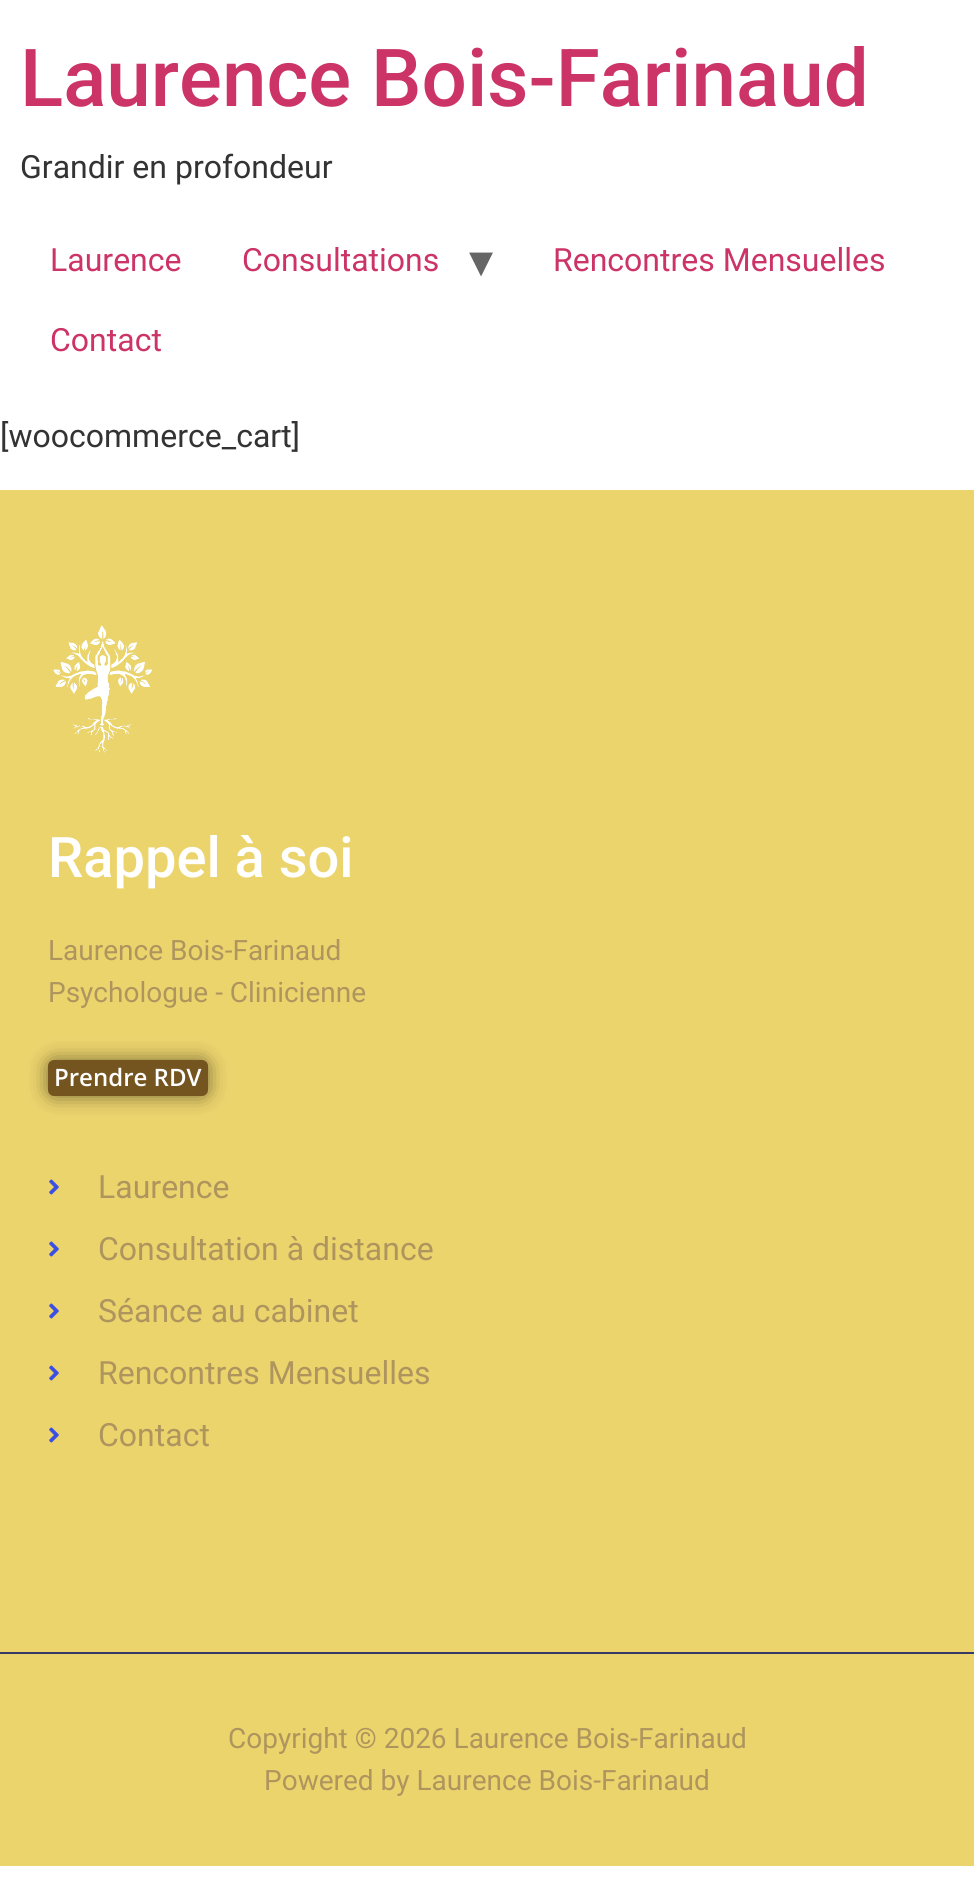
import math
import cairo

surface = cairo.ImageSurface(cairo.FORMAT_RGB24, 974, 1884)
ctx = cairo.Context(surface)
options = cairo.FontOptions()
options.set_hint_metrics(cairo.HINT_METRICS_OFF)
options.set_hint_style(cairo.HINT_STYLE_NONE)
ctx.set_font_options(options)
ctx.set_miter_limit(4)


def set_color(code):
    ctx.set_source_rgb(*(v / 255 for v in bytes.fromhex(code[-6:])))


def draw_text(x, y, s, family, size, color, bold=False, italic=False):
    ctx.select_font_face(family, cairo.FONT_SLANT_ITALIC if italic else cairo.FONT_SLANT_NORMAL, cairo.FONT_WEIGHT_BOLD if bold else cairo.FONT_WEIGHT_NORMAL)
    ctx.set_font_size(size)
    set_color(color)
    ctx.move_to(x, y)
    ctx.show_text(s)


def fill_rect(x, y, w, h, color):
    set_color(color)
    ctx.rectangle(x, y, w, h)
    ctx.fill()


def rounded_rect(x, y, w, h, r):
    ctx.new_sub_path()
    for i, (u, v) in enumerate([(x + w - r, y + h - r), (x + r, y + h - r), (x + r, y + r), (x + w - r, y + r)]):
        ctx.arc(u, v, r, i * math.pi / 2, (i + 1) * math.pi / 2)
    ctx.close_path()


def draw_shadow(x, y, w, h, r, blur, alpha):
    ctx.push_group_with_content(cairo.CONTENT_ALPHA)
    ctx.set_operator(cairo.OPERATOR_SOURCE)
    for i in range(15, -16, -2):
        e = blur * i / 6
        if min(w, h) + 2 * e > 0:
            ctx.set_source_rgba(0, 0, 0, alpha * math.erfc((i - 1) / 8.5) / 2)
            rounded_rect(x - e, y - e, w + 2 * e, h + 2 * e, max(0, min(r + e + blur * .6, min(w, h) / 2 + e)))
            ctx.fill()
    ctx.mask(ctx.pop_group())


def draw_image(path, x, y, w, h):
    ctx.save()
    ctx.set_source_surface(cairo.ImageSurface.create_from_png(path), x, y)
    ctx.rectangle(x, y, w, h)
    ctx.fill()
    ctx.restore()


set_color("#ffffff")
ctx.paint()
draw_text(20, 106, "Laurence Bois-Farinaud", "Roboto Medium", 80, "#cc3366")
draw_text(20, 178, "Grandir en profondeur", "Roboto", 32, "#333333")
draw_text(50, 271, "Laurence", "Roboto", 32, "#cc3366")
draw_text(242, 271, "Consultations", "Roboto", 32, "#cc3366")
draw_text(469, 277, "▾", "DejaVu Sans", 48, "#666666")
draw_text(553, 271, "Rencontres Mensuelles", "Roboto", 32, "#cc3366")
draw_text(50, 351, "Contact", "Roboto", 32, "#cc3366")
draw_text(0, 447, "[woocommerce_cart]", "Roboto", 32, "#333333")
fill_rect(0, 490, 974, 1162, "#ecd46d")
draw_image("assets/img1.png", 53, 625, 100, 128)
draw_text(48, 877, "Rappel à soi", "Roboto Medium", 56, "#ffffff")
draw_text(48, 960, "Laurence Bois-Farinaud", "Roboto", 28, "#ae955e")
draw_text(48, 1002, "Psychologue - Clinicienne", "Roboto", 28, "#ae955e")
set_color("#000000")
draw_shadow(48, 1060, 160, 36, 6, 10, 0.5)
set_color("#74541f")
rounded_rect(48, 1060, 160, 36, 6)
ctx.fill()
draw_text(54, 1086, "Prendre RDV", "Open Sans SemiBold", 24, "#ffffff")
draw_image("assets/img2.png", 49, 1179, 10, 16)
draw_text(98, 1198, "Laurence", "Roboto", 32, "#ae955e")
draw_image("assets/img2.png", 49, 1241, 10, 16)
draw_text(98, 1260, "Consultation à distance", "Roboto", 32, "#ae955e")
draw_image("assets/img2.png", 49, 1303, 10, 16)
draw_text(98, 1322, "Séance au cabinet", "Roboto", 32, "#ae955e")
draw_image("assets/img2.png", 49, 1365, 10, 16)
draw_text(98, 1384, "Rencontres Mensuelles", "Roboto", 32, "#ae955e")
draw_image("assets/img2.png", 49, 1427, 10, 16)
draw_text(98, 1446, "Contact", "Roboto", 32, "#ae955e")
fill_rect(0, 1654, 974, 212, "#ecd46d")
fill_rect(0, 1652, 974, 2, "#343965")
draw_text(228, 1748, "Copyright © 2026 Laurence Bois-Farinaud", "Roboto", 28, "#ae955e")
draw_text(264, 1790, "Powered by Laurence Bois-Farinaud", "Roboto", 28, "#ae955e")
surface.write_to_png("output.png")
